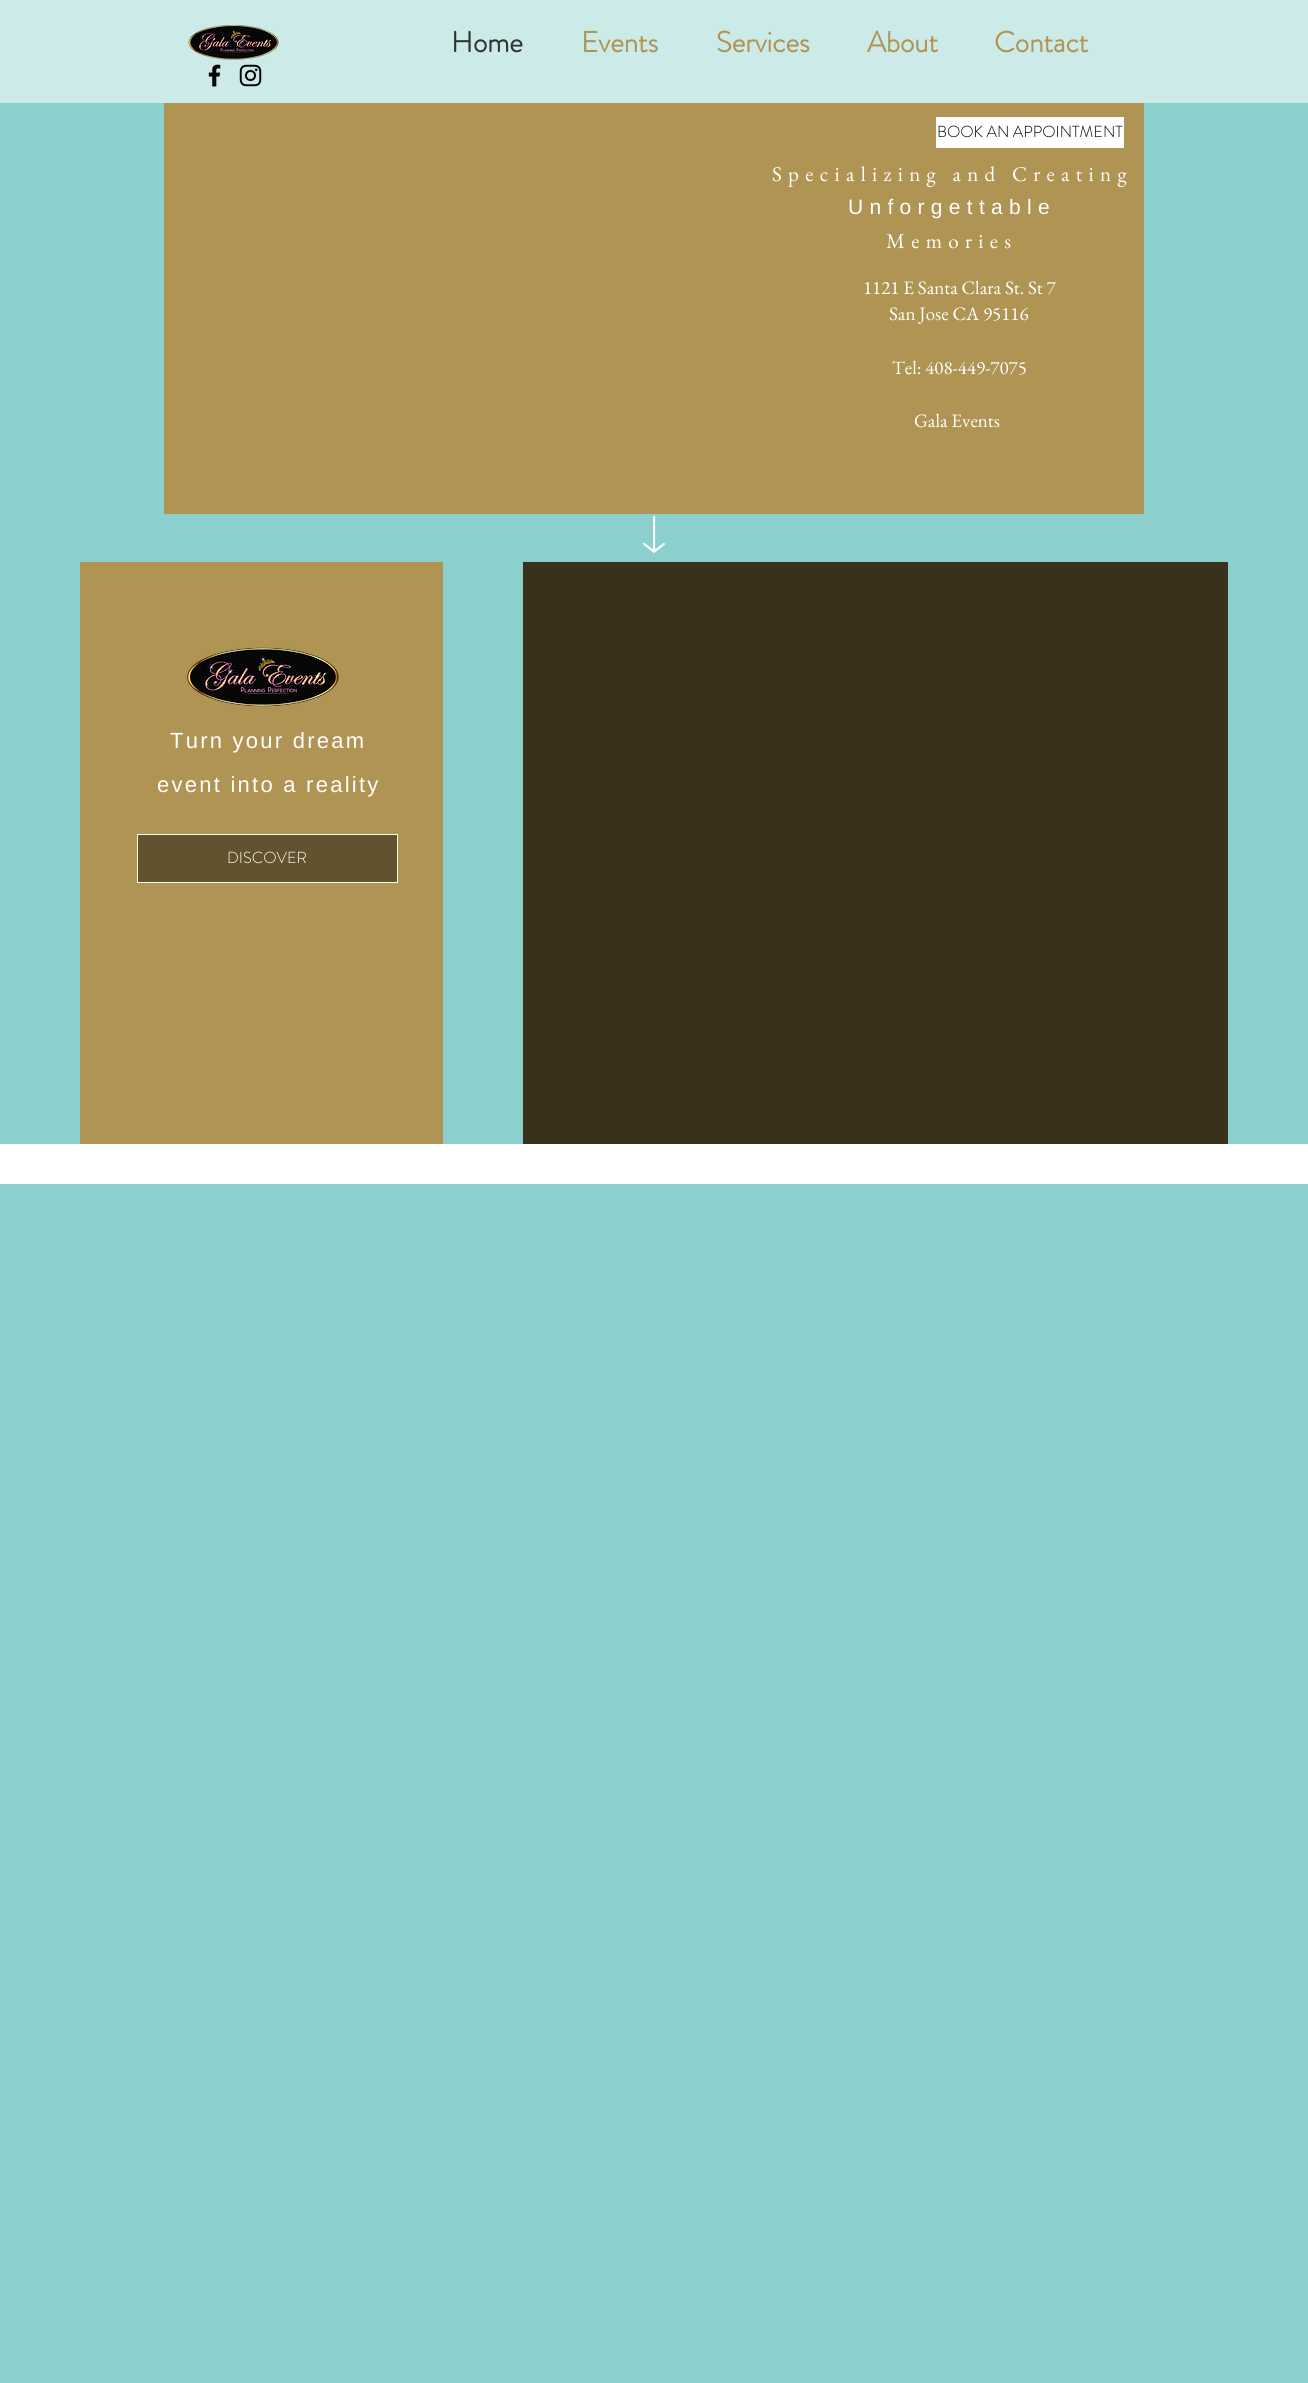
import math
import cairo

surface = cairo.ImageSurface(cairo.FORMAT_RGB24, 1308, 2383)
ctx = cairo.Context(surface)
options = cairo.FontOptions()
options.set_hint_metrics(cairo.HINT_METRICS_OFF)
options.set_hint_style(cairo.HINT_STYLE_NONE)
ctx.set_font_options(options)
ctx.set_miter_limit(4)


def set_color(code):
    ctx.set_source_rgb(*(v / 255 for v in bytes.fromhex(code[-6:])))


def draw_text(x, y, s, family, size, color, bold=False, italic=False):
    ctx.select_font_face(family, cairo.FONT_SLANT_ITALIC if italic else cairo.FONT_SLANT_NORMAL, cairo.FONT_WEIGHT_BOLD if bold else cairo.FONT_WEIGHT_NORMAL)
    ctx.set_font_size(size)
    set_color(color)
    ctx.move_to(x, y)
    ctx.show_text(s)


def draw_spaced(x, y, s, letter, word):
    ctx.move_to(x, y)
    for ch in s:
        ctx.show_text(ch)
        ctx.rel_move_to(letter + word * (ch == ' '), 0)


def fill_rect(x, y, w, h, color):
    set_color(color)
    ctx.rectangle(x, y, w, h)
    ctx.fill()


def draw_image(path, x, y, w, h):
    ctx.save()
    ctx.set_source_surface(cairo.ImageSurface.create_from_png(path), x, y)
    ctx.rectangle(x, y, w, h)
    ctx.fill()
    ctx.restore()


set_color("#8bd0cd")
ctx.paint()
fill_rect(0, 0, 1308, 103, "#cbeae8")
draw_image("assets/img1.png", 188, 25, 91, 35)
draw_text(451, 52, "Home", "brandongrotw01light", 29, "#333333", bold=True)
draw_text(581, 52, "Events", "brandongrotw01light", 29, "#af9453", bold=True)
draw_text(716, 52, "Services", "brandongrotw01light", 29, "#af9453", bold=True)
draw_text(867, 52, "About", "brandongrotw01light", 29, "#af9453", bold=True)
draw_text(994, 52, "Contact", "brandongrotw01light", 29, "#af9453", bold=True)
draw_image("assets/img2.png", 208, 64, 13, 23)
draw_image("assets/img3.png", 239, 64, 23, 23)
fill_rect(164, 103, 980, 411, "#af9453")
set_color("#ffffff")
ctx.rectangle(936.5, 117.5, 187, 30)
ctx.fill_preserve()
set_color("#fbfbfb")
ctx.set_line_width(1)
ctx.stroke()
draw_text(937, 137, "BOOK AN APPOINTMENT", "brandongrotw01light Light", 16, "#000000")
ctx.select_font_face("EB Garamond")
ctx.set_font_size(21)
set_color("#ffffff")
draw_spaced(772, 181, "Specializing and Creating", 6.3, 0)
ctx.select_font_face("Liberation Sans")
draw_spaced(848, 214, "Unforgettable", 6.3, 0)
ctx.select_font_face("EB Garamond")
draw_spaced(886, 248, "Memories", 6.3, 0)
draw_text(863, 294, "1121 E Santa Clara St. St 7", "EB Garamond", 19, "#ffffff")
draw_text(889, 320, "San Jose CA 95116", "EB Garamond", 19, "#ffffff")
draw_text(892, 374, "Tel: 408-449-7075", "EB Garamond", 19, "#ffffff")
draw_text(914, 427, "Gala Events", "EB Garamond", 19, "#ffffff")
draw_image("assets/img4.png", 643, 515, 22, 38)
fill_rect(80, 562, 363, 582, "#af9453")
draw_image("assets/img5.png", 187, 647, 152, 60)
ctx.select_font_face("Liberation Sans")
ctx.set_font_size(22)
set_color("#ffffff")
draw_spaced(170, 748, "Turn your dream", 2.25, 0)
draw_spaced(157, 792, "event into a reality", 2.25, 0)
set_color("#62522d")
ctx.rectangle(137.5, 834.5, 260, 48)
ctx.fill_preserve()
set_color("#fbfbfb")
ctx.stroke()
draw_text(227, 863, "DISCOVER", "brandongrotw01light Light", 16, "#ffffff")
fill_rect(523, 562, 705, 582, "#3a311c")
fill_rect(0, 1144, 1308, 40, "#ffffff")
surface.write_to_png("output.png")
